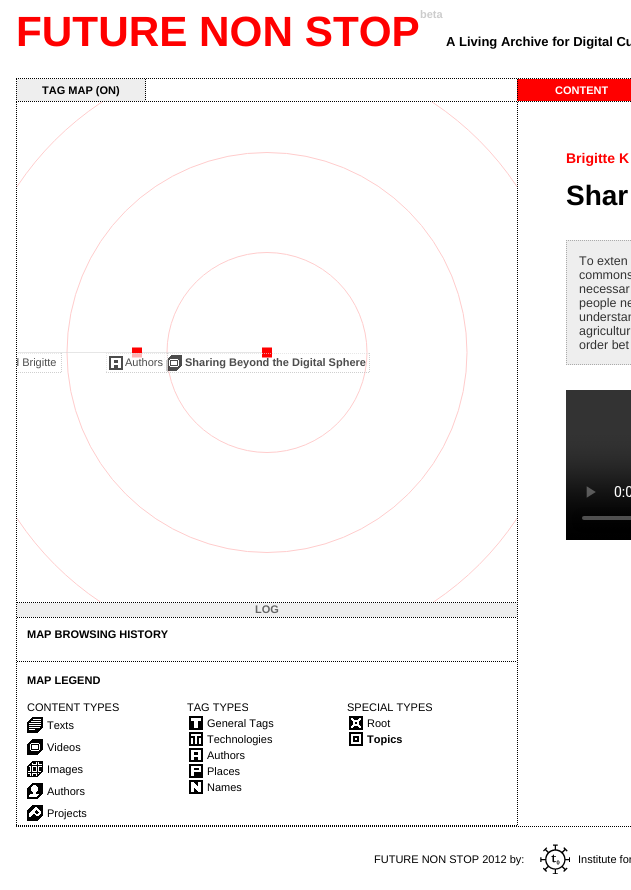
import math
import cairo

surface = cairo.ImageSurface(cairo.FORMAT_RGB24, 631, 890)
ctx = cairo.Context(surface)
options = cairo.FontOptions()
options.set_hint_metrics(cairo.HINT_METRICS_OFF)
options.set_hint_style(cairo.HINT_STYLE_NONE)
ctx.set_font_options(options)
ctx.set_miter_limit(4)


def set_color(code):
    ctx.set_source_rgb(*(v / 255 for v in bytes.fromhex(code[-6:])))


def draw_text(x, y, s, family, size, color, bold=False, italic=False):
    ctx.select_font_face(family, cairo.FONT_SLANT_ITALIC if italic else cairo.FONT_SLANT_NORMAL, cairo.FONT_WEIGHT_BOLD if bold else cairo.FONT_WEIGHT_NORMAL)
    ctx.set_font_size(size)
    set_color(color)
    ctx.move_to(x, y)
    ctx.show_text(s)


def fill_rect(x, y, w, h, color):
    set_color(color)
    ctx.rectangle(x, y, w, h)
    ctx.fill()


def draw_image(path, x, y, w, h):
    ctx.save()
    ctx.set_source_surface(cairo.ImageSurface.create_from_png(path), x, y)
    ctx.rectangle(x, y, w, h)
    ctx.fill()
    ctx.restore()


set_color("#ffffff")
ctx.paint()
ctx.new_path()
ctx.move_to(16, 78.5)
ctx.line_to(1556, 78.5)
set_color("#000000")
ctx.set_line_width(1)
ctx.set_dash([1, 1])
ctx.stroke()
draw_text(420, 18, "beta", "Liberation Sans", 11, "#cccccc", bold=True)
draw_text(16, 46, "FUTURE NON STOP", "Liberation Sans", 42.25, "#ff0000", bold=True)
draw_text(446, 46, "A Living Archive for Digital Cu", "Liberation Sans", 13, "#000000", bold=True)
ctx.new_path()
ctx.move_to(16, 101.5)
ctx.line_to(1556, 101.5)
ctx.stroke()
ctx.new_path()
ctx.move_to(16.5, 79)
ctx.line_to(16.5, 102)
ctx.stroke()
fill_rect(17, 79, 129, 22, "#eeeeee")
ctx.new_path()
ctx.move_to(145.5, 79)
ctx.line_to(145.5, 101)
set_color("#000000")
ctx.stroke()
draw_text(42, 94, "TAG MAP (ON)", "Liberation Sans", 11, "#000000", bold=True)
fill_rect(517, 79, 114, 22, "#ff0000")
ctx.new_path()
ctx.move_to(517.5, 79)
ctx.line_to(517.5, 101)
set_color("#000000")
ctx.stroke()
draw_text(555, 94, "CONTENT", "Liberation Sans", 11, "#ffffff", bold=True)
draw_text(566, 163, "Brigitte K", "Liberation Sans", 14, "#ff0000", bold=True)
draw_text(566, 205, "Shar", "Liberation Sans", 28, "#000000", bold=True)
fill_rect(566, 240, 65, 125, "#eeeeee")
ctx.new_path()
ctx.move_to(566, 240.5)
ctx.line_to(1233, 240.5)
set_color("#aaaaaa")
ctx.stroke()
ctx.new_path()
ctx.move_to(566, 364.5)
ctx.line_to(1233, 364.5)
ctx.stroke()
ctx.new_path()
ctx.move_to(566.5, 240)
ctx.line_to(566.5, 365)
ctx.stroke()
draw_text(579, 265, "To exten", "Liberation Sans", 12.5, "#333333")
draw_text(579, 279, "commons", "Liberation Sans", 12.5, "#333333")
draw_text(579, 293, "necessar", "Liberation Sans", 12.5, "#333333")
draw_text(579, 307, "people ne", "Liberation Sans", 12.5, "#333333")
draw_text(579, 321, "understan", "Liberation Sans", 12.5, "#333333")
draw_text(579, 335, "agricultur", "Liberation Sans", 12.5, "#333333")
draw_text(579, 349, "order bet", "Liberation Sans", 12.5, "#333333")
draw_image("assets/img1.png", 566, 390, 65, 150)
ctx.new_path()
ctx.move_to(517.5, 102)
ctx.line_to(517.5, 826)
set_color("#000000")
ctx.stroke()
ctx.new_path()
ctx.move_to(16, 825.5)
ctx.line_to(518, 825.5)
ctx.stroke()
ctx.new_path()
ctx.move_to(16.5, 102)
ctx.line_to(16.5, 826)
ctx.stroke()
ctx.new_path()
ctx.move_to(17, 602.5)
ctx.line_to(517, 602.5)
ctx.stroke()
draw_image("assets/img2.png", 17, 102, 500, 500)
draw_image("assets/img3.png", 17, 347, 255, 11)
ctx.save()
ctx.rectangle(17, 102, 500, 500)
ctx.clip()
ctx.new_path()
ctx.move_to(-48, 353.5)
ctx.line_to(62, 353.5)
set_color("#e7e7e7")
ctx.stroke()
ctx.restore()
ctx.new_path()
ctx.move_to(61.5, 353)
ctx.line_to(61.5, 373)
set_color("#cfcfcf")
ctx.stroke()
ctx.save()
ctx.rectangle(17, 102, 500, 500)
ctx.clip()
ctx.new_path()
ctx.move_to(-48, 372.5)
ctx.line_to(62, 372.5)
ctx.stroke()
draw_text(13, 366, "d Brigitte", "Liberation Sans", 11, "#4d4d4d")
ctx.restore()
draw_image("assets/img5.png", 166, 355, 16, 16)
ctx.new_path()
ctx.move_to(164, 353.5)
ctx.line_to(370, 353.5)
ctx.set_source_rgba(0.867, 0.867, 0.867, 0.7)
ctx.stroke()
ctx.new_path()
ctx.move_to(164, 372.5)
ctx.line_to(370, 372.5)
ctx.set_source_rgba(0.733, 0.733, 0.733, 0.7)
ctx.stroke()
ctx.new_path()
ctx.move_to(164.5, 353)
ctx.line_to(164.5, 373)
set_color("#e7e7e7")
ctx.stroke()
ctx.set_source_rgba(1, 1, 1, 0.7)
ctx.rectangle(132, 353, 36, 20)
ctx.fill()
draw_image("assets/img4.png", 109, 356, 14, 14)
ctx.new_path()
ctx.move_to(106, 353.5)
ctx.line_to(168, 353.5)
ctx.set_source_rgba(0.867, 0.867, 0.867, 0.7)
ctx.stroke()
ctx.new_path()
ctx.move_to(167.5, 353)
ctx.line_to(167.5, 373)
ctx.move_to(106, 372.5)
ctx.line_to(168, 372.5)
ctx.set_source_rgba(0.733, 0.733, 0.733, 0.7)
ctx.stroke()
ctx.new_path()
ctx.move_to(106.5, 353)
ctx.line_to(106.5, 373)
set_color("#e7e7e7")
ctx.stroke()
draw_text(125, 366, "Authors", "Liberation Sans", 11, "#4d4d4d")
ctx.new_path()
ctx.move_to(369.5, 353)
ctx.line_to(369.5, 373)
set_color("#cfcfcf")
ctx.stroke()
draw_text(185, 366, "Sharing Beyond the Digital Sphere", "Liberation Sans", 11, "#4d4d4d", bold=True)
fill_rect(17, 603, 500, 14, "#eeeeee")
draw_text(255, 613, "LOG", "Liberation Sans", 11, "#666666", bold=True)
ctx.new_path()
ctx.move_to(17, 617.5)
ctx.line_to(517, 617.5)
set_color("#000000")
ctx.stroke()
draw_text(27, 638, "MAP BROWSING HISTORY", "Liberation Sans", 11, "#000000", bold=True)
ctx.new_path()
ctx.move_to(17, 661.5)
ctx.line_to(517, 661.5)
ctx.stroke()
draw_text(27, 684, "MAP LEGEND", "Liberation Sans", 11, "#000000", bold=True)
draw_text(27, 711, "CONTENT TYPES", "Liberation Sans", 11, "#000000")
draw_image("assets/img6.png", 27, 717, 16, 16)
draw_text(47, 729, "Texts", "Liberation Sans", 11, "#000000")
draw_image("assets/img7.png", 27, 739, 16, 16)
draw_text(47, 751, "Videos", "Liberation Sans", 11, "#000000")
draw_image("assets/img8.png", 27, 761, 16, 16)
draw_text(47, 773, "Images", "Liberation Sans", 11, "#000000")
draw_image("assets/img9.png", 27, 783, 16, 16)
draw_text(47, 795, "Authors", "Liberation Sans", 11, "#000000")
draw_image("assets/img10.png", 27, 805, 16, 16)
draw_text(47, 817, "Projects", "Liberation Sans", 11, "#000000")
draw_text(187, 711, "TAG TYPES", "Liberation Sans", 11, "#000000")
draw_image("assets/img11.png", 189, 716, 14, 14)
draw_text(207, 727, "General Tags", "Liberation Sans", 11, "#000000")
draw_image("assets/img12.png", 189, 732, 14, 14)
draw_text(207, 743, "Technologies", "Liberation Sans", 11, "#000000")
draw_image("assets/img13.png", 189, 748, 14, 14)
draw_text(207, 759, "Authors", "Liberation Sans", 11, "#000000")
draw_image("assets/img14.png", 189, 764, 14, 14)
draw_text(207, 775, "Places", "Liberation Sans", 11, "#000000")
draw_image("assets/img15.png", 189, 780, 14, 14)
draw_text(207, 791, "Names", "Liberation Sans", 11, "#000000")
draw_text(347, 711, "SPECIAL TYPES", "Liberation Sans", 11, "#000000")
draw_image("assets/img16.png", 349, 716, 14, 14)
draw_text(367, 727, "Root", "Liberation Sans", 11, "#000000")
draw_image("assets/img17.png", 349, 732, 14, 14)
draw_text(367, 743, "Topics", "Liberation Sans", 11, "#000000", bold=True)
ctx.new_path()
ctx.move_to(16, 826.5)
ctx.line_to(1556, 826.5)
ctx.stroke()
draw_text(374, 863, "FUTURE NON STOP 2012 by:", "Liberation Sans", 11, "#000000")
draw_image("assets/img18.png", 540, 844, 30, 30)
draw_text(578, 863, "Institute for", "Liberation Sans", 11, "#000000")
surface.write_to_png("output.png")
